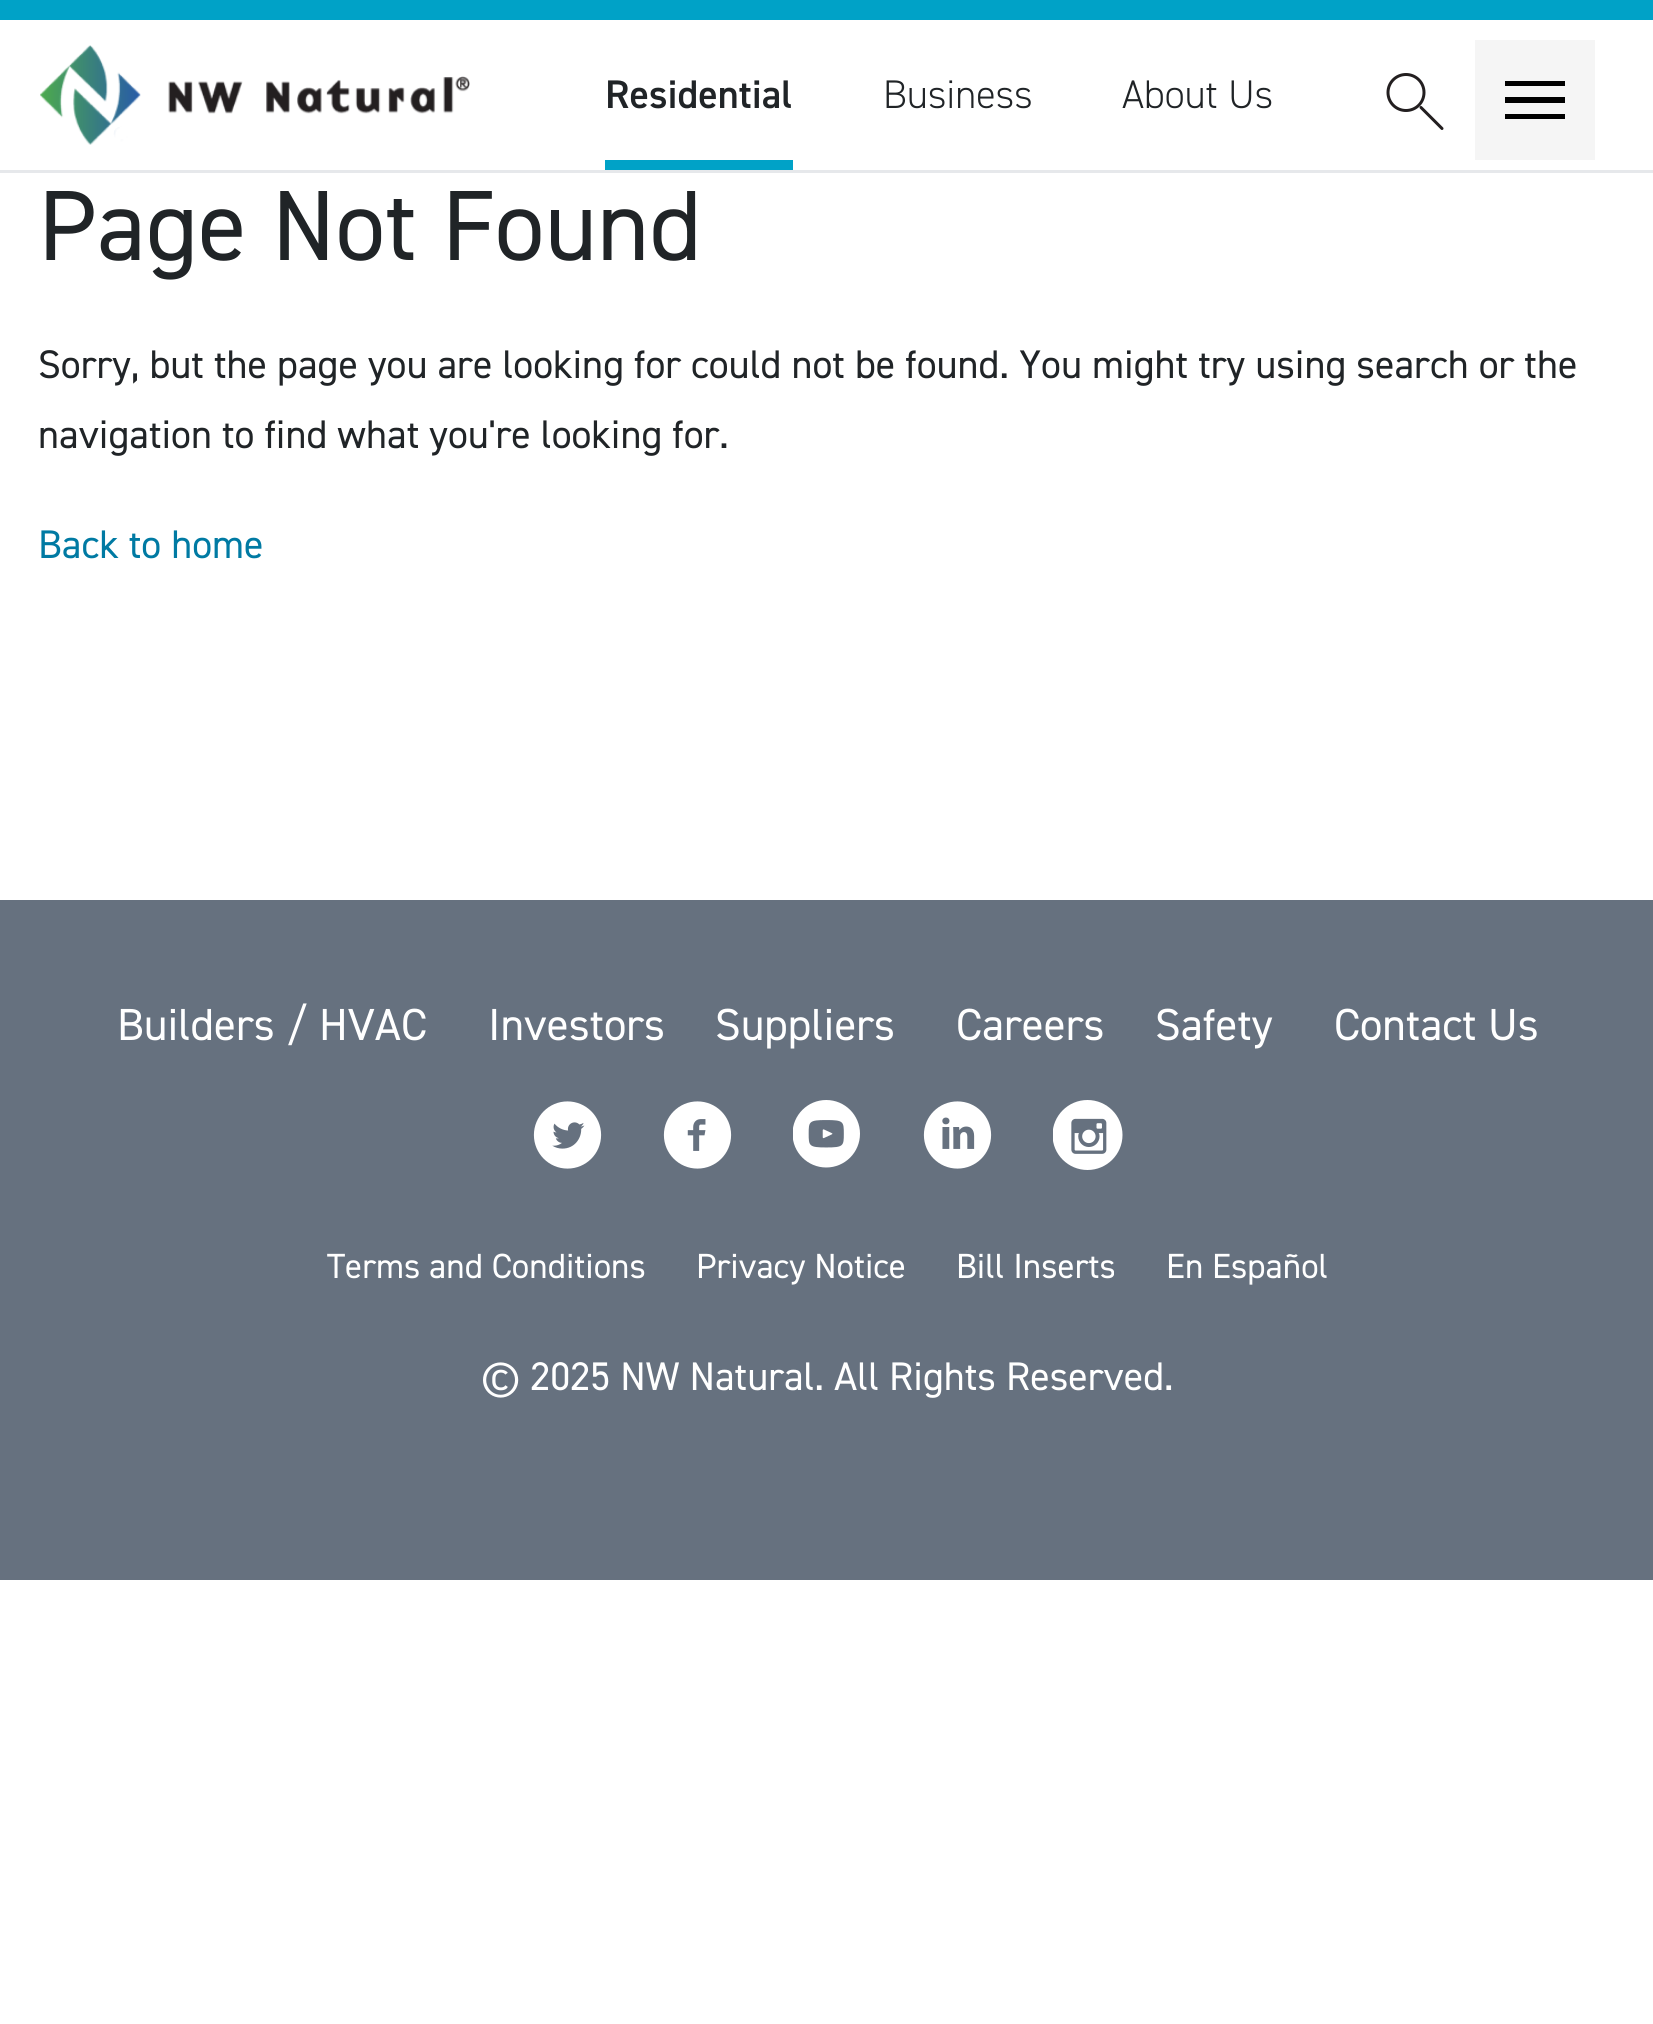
import math
import cairo

surface = cairo.ImageSurface(cairo.FORMAT_RGB24, 1653, 2024)
ctx = cairo.Context(surface)
options = cairo.FontOptions()
options.set_hint_metrics(cairo.HINT_METRICS_OFF)
options.set_hint_style(cairo.HINT_STYLE_NONE)
ctx.set_font_options(options)
ctx.set_miter_limit(4)


def set_color(code):
    ctx.set_source_rgb(*(v / 255 for v in bytes.fromhex(code[-6:])))


def draw_text(x, y, s, family, size, color, bold=False, italic=False):
    ctx.select_font_face(family, cairo.FONT_SLANT_ITALIC if italic else cairo.FONT_SLANT_NORMAL, cairo.FONT_WEIGHT_BOLD if bold else cairo.FONT_WEIGHT_NORMAL)
    ctx.set_font_size(size)
    set_color(color)
    ctx.move_to(x, y)
    ctx.show_text(s)


def fill_rect(x, y, w, h, color):
    set_color(color)
    ctx.rectangle(x, y, w, h)
    ctx.fill()


def draw_image(path, x, y, w, h):
    ctx.save()
    ctx.set_source_surface(cairo.ImageSurface.create_from_png(path), x, y)
    ctx.rectangle(x, y, w, h)
    ctx.fill()
    ctx.restore()


set_color("#ffffff")
ctx.paint()
fill_rect(0, 170, 1653, 3, "#e6e8eb")
fill_rect(0, 0, 1653, 20, "#00a2c7")
draw_image("assets/img1.png", 40, 45, 430, 100)
draw_text(605, 108, "Residential", "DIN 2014 SemiBold", 40, "#202427")
fill_rect(605, 160, 188, 10, "#00a2c7")
draw_text(883, 108, "Business", "DIN 2014 Light", 40, "#202427")
draw_text(1122, 108, "About Us", "DIN 2014 Light", 40, "#202427")
ctx.new_path()
ctx.move_to(1424, 92.5)
ctx.curve_to(1424, 102.5, 1416, 110.5, 1406, 110.5)
ctx.curve_to(1396, 110.5, 1388, 102.5, 1388, 92.5)
ctx.curve_to(1388, 82.5, 1396, 74.5, 1406, 74.5)
ctx.curve_to(1416, 74.5, 1424, 82.5, 1424, 92.5)
ctx.close_path()
set_color("#231f20")
ctx.set_line_width(3)
ctx.stroke()
ctx.new_path()
ctx.move_to(1421, 107.5)
ctx.line_to(1442, 128.5)
ctx.set_line_cap(cairo.LINE_CAP_ROUND)
ctx.stroke()
fill_rect(1475, 40, 120, 120, "#f5f5f5")
set_color("#000000")
ctx.set_fill_rule(cairo.FILL_RULE_EVEN_ODD)
ctx.new_path()
ctx.move_to(1505, 81)
ctx.line_to(1565, 81)
ctx.line_to(1565, 86)
ctx.line_to(1505, 86)
ctx.close_path()
ctx.move_to(1505, 97)
ctx.line_to(1565, 97)
ctx.line_to(1565, 103)
ctx.line_to(1505, 103)
ctx.close_path()
ctx.move_to(1505, 114)
ctx.line_to(1565, 114)
ctx.line_to(1565, 119)
ctx.line_to(1505, 119)
ctx.close_path()
ctx.fill()
draw_text(38, 260, "Page Not Found", "DIN 2014", 100, "#202427")
draw_text(38, 378, "Sorry, but the page you are looking for could not be found. You might try using search or the", "DIN 2014", 40, "#202427")
draw_text(38, 448, "navigation to find what you're looking for.", "DIN 2014", 40, "#202427")
draw_text(38, 558, "Back to home", "DIN 2014", 40, "#007aa3")
fill_rect(0, 900, 1653, 680, "#66717f")
draw_text(117, 1040, "Builders / HVAC", "DIN 2014", 45, "#ffffff")
draw_text(488, 1040, "Investors", "DIN 2014", 45, "#ffffff")
draw_text(715, 1040, "Suppliers", "DIN 2014", 45, "#ffffff")
draw_text(956, 1040, "Careers", "DIN 2014", 45, "#ffffff")
draw_text(1155, 1040, "Safety", "DIN 2014", 45, "#ffffff")
draw_text(1334, 1040, "Contact Us", "DIN 2014", 45, "#ffffff")
draw_image("assets/img2.png", 533, 1101, 69, 68)
draw_image("assets/img3.png", 663, 1101, 69, 68)
draw_image("assets/img4.png", 793, 1100, 67, 68)
draw_image("assets/img5.png", 923, 1101, 69, 68)
draw_image("assets/img6.png", 1053, 1100, 70, 70)
draw_text(327, 1278, "Terms and Conditions", "DIN 2014", 35, "#ffffff")
draw_text(696, 1278, "Privacy Notice", "DIN 2014", 35, "#ffffff")
draw_text(956, 1278, "Bill Inserts", "DIN 2014", 35, "#ffffff")
draw_text(1166, 1278, "En Español", "DIN 2014", 35, "#ffffff")
draw_text(481, 1390, "© 2025 NW Natural. All Rights Reserved.", "DIN 2014", 40, "#ffffff")
surface.write_to_png("output.png")
